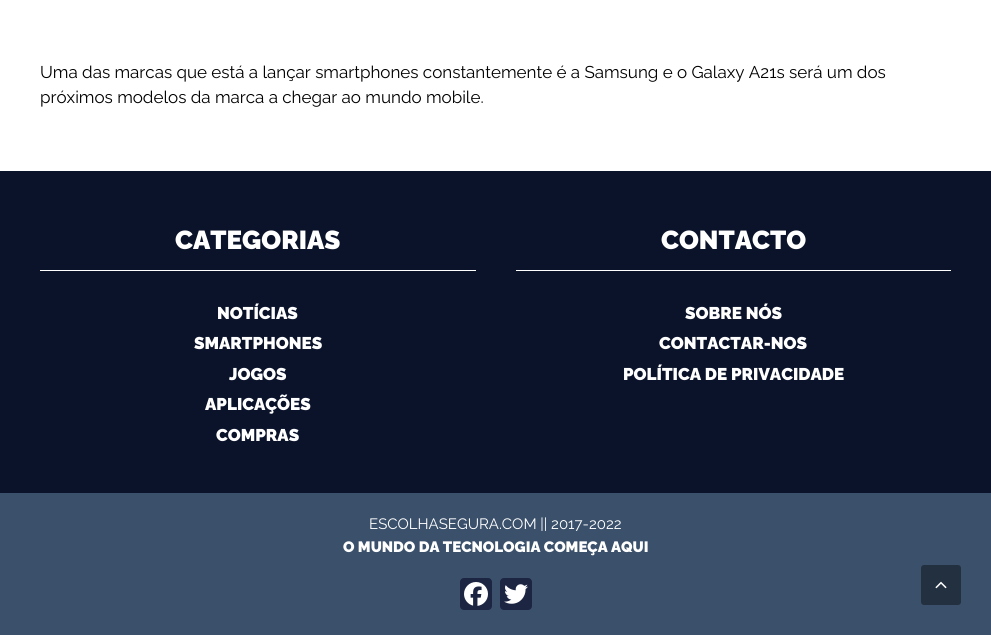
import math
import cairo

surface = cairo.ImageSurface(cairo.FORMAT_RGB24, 991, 635)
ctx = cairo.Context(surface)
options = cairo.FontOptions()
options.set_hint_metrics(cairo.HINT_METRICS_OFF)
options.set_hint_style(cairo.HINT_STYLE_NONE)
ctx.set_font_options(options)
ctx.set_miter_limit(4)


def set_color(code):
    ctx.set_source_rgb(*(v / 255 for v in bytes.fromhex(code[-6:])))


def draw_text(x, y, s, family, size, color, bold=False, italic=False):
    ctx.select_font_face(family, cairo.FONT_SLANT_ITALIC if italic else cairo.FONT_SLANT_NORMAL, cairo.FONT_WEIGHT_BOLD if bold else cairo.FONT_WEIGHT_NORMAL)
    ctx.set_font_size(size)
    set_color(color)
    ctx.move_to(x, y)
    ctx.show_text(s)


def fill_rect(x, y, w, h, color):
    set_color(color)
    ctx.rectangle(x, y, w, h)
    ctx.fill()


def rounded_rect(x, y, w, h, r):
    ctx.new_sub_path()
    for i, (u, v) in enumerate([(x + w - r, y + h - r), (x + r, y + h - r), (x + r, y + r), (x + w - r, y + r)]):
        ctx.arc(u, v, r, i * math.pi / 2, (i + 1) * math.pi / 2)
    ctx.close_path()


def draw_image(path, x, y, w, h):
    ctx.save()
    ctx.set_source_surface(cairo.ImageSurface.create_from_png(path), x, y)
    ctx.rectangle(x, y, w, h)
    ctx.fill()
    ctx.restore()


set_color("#ffffff")
ctx.paint()
draw_text(40, 78, "Uma das marcas que está a lançar smartphones constantemente é a Samsung e o Galaxy A21s será um dos", "Raleway", 17, "#000000")
draw_text(40, 103, "próximos modelos da marca a chegar ao mundo mobile.", "Raleway", 17, "#000000")
fill_rect(0, 171, 991, 322, "#0b132b")
fill_rect(40, 270, 436, 1, "#ffffff")
draw_text(175, 249, "CATEGORIAS", "Raleway Black", 26, "#ffffff")
draw_text(217, 319, "NOTÍCIAS", "Raleway Black", 17, "#ffffff")
draw_text(194, 349, "SMARTPHONES", "Raleway Black", 17, "#ffffff")
draw_text(229, 380, "JOGOS", "Raleway Black", 17, "#ffffff")
draw_text(205, 410, "APLICAÇÕES", "Raleway Black", 17, "#ffffff")
draw_text(216, 441, "COMPRAS", "Raleway Black", 17, "#ffffff")
fill_rect(516, 270, 435, 1, "#ffffff")
draw_text(661, 249, "CONTACTO", "Raleway Black", 26, "#ffffff")
draw_text(685, 319, "SOBRE NÓS", "Raleway Black", 17, "#ffffff")
draw_text(659, 349, "CONTACTAR-NOS", "Raleway Black", 17, "#ffffff")
draw_text(623, 380, "POLÍTICA DE PRIVACIDADE", "Raleway Black", 17, "#ffffff")
fill_rect(0, 493, 991, 142, "#3a506b")
draw_text(369, 529, "ESCOLHASEGURA.COM || 2017-2022", "Raleway", 15, "#ffffff")
draw_text(343, 552, "O MUNDO DA TECNOLOGIA COMEÇA AQUI", "Raleway Black", 15, "#ffffff")
set_color("#1c2541")
rounded_rect(460, 578, 32, 32, 4)
ctx.fill()
draw_image("assets/img1.png", 464, 582, 24, 24)
rounded_rect(500, 578, 32, 32, 4)
ctx.fill()
draw_image("assets/img2.png", 504, 584, 24, 20)
set_color("#233040")
rounded_rect(921, 565, 40, 40, 3)
ctx.fill()
draw_image("assets/img3.png", 935, 581, 12, 8)
surface.write_to_png("output.png")
